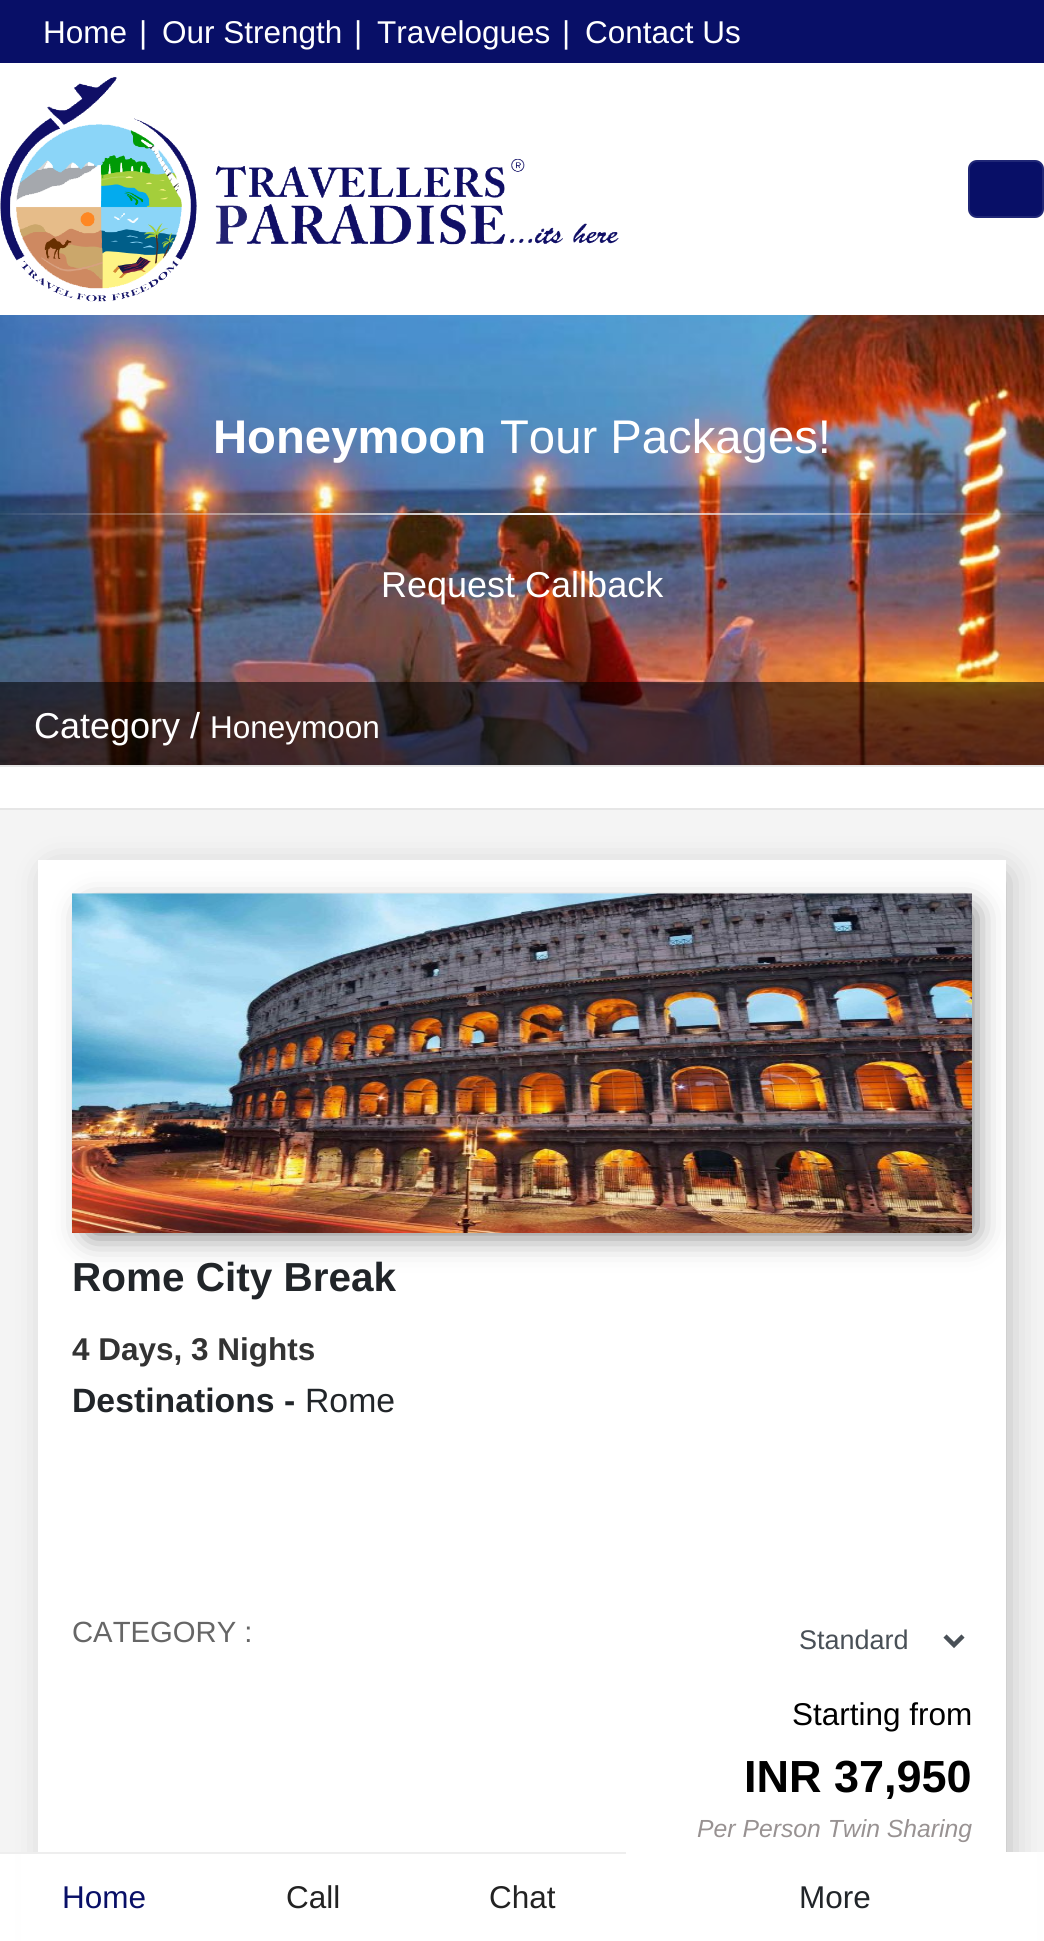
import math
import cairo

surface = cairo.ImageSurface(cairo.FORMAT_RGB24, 1044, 1941)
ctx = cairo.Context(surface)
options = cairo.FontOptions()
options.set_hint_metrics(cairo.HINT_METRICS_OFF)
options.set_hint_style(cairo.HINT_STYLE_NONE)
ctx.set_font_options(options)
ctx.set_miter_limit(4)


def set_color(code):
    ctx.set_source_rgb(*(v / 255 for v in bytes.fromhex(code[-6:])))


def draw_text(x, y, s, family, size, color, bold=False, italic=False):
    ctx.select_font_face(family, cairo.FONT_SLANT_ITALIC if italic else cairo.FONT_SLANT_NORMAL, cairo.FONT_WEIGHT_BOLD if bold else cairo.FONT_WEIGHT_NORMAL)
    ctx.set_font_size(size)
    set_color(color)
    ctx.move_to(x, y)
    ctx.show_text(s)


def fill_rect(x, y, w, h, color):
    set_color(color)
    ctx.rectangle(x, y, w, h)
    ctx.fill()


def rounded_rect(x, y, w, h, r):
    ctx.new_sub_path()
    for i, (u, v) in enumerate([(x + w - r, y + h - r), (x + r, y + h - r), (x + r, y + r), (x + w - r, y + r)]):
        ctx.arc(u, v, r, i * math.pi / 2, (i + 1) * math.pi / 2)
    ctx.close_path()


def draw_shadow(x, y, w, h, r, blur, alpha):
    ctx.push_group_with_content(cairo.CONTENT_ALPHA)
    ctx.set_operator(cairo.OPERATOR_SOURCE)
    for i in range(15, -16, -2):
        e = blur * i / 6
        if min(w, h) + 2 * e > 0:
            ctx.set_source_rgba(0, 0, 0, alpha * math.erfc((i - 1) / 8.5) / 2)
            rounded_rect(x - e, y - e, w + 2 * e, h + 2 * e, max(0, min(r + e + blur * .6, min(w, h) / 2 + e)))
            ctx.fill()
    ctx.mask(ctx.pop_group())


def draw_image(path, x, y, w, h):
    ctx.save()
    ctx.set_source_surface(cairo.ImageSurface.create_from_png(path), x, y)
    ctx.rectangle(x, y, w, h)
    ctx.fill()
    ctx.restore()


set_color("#ffffff")
ctx.paint()
fill_rect(0, 0, 1044, 63, "#080f67")
draw_text(43, 43, "Home", "Liberation Sans", 31.5, "#ffffff")
draw_text(139, 43, "|", "Liberation Sans", 31.5, "#ffffff")
draw_text(162, 43, "Our Strength", "Liberation Sans", 31.5, "#ffffff")
draw_text(354, 43, "|", "Liberation Sans", 31.5, "#ffffff")
draw_text(377, 43, "Travelogues", "Liberation Sans", 31.5, "#ffffff")
draw_text(562, 43, "|", "Liberation Sans", 31.5, "#ffffff")
draw_text(585, 43, "Contact Us", "Liberation Sans", 31.5, "#ffffff")
draw_image("assets/img1.png", 0, 77, 619, 225)
set_color("#080f67")
rounded_rect(968, 160, 76, 58, 9)
ctx.fill()
rounded_rect(969, 161, 74, 56, 8)
ctx.set_source_rgba(1, 1, 1, 0.1)
ctx.stroke()
draw_image("assets/img2.png", 0, 315, 1044, 450)
draw_text(213, 453, "Honeymoon", "Liberation Sans", 47.25, "#ffffff", bold=True)
draw_text(500, 453, "Tour Packages!", "Liberation Sans", 47.25, "#ffffff")
draw_text(381, 597, "Request Callback", "Liberation Sans", 36, "#ffffff")
ctx.set_source_rgba(0, 0, 0, 0.56)
ctx.rectangle(0, 682, 1044, 83)
ctx.fill()
draw_text(34, 738, "Category /", "Liberation Sans", 36, "#ffffff")
draw_text(210, 738, "Honeymoon", "Liberation Sans", 31.5, "#ffffff")
fill_rect(0, 765, 1044, 2, "#e6e6e6")
fill_rect(0, 808, 1044, 2, "#e6e6e6")
fill_rect(0, 810, 1044, 1042, "#f4f4f4")
set_color("#000000")
draw_shadow(54, 875, 950, 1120, 0, 18, 0.3)
fill_rect(38, 860, 968, 992, "#ffffff")
set_color("#000000")
draw_shadow(90, 911, 882, 322, 0, 16, 0.6)
draw_image("assets/img3.png", 72, 893, 900, 340)
draw_text(72, 1291, "Rome City Break", "Liberation Sans", 40.5, "#212529", bold=True)
draw_text(72, 1360, "4 Days, 3 Nights", "Liberation Sans", 31.5, "#333333", bold=True)
draw_text(72, 1412, "Destinations -", "Liberation Sans", 33.75, "#212529", bold=True)
draw_text(305, 1412, "Rome", "Liberation Sans", 33.75, "#212529")
draw_text(72, 1642, "CATEGORY :", "Liberation Sans", 29.25, "#666666")
ctx.new_path()
ctx.move_to(945, 1636)
ctx.line_to(954, 1645)
ctx.line_to(963, 1636)
set_color("#495057")
ctx.set_line_width(4.5)
ctx.stroke()
draw_text(799, 1649, "Standard", "Liberation Sans", 27, "#495057")
draw_text(792, 1725, "Starting from", "Liberation Sans", 31.5, "#000000")
draw_text(744, 1792, "INR 37,950", "Liberation Sans", 45, "#000000", bold=True)
draw_text(697, 1837, "Per Person Twin Sharing", "Liberation Sans", 24.75, "#989292", italic=True)
fill_rect(21, 1852, 1016, 89, "#ffffff")
fill_rect(0, 1852, 626, 2, "#eeeeee")
draw_text(62, 1908, "Home", "Liberation Sans", 31.5, "#080f67")
draw_text(286, 1908, "Call", "Liberation Sans", 31.5, "#222222")
draw_text(489, 1908, "Chat", "Liberation Sans", 31.5, "#222222")
draw_text(799, 1908, "More", "Liberation Sans", 31.5, "#212529")
surface.write_to_png("output.png")
